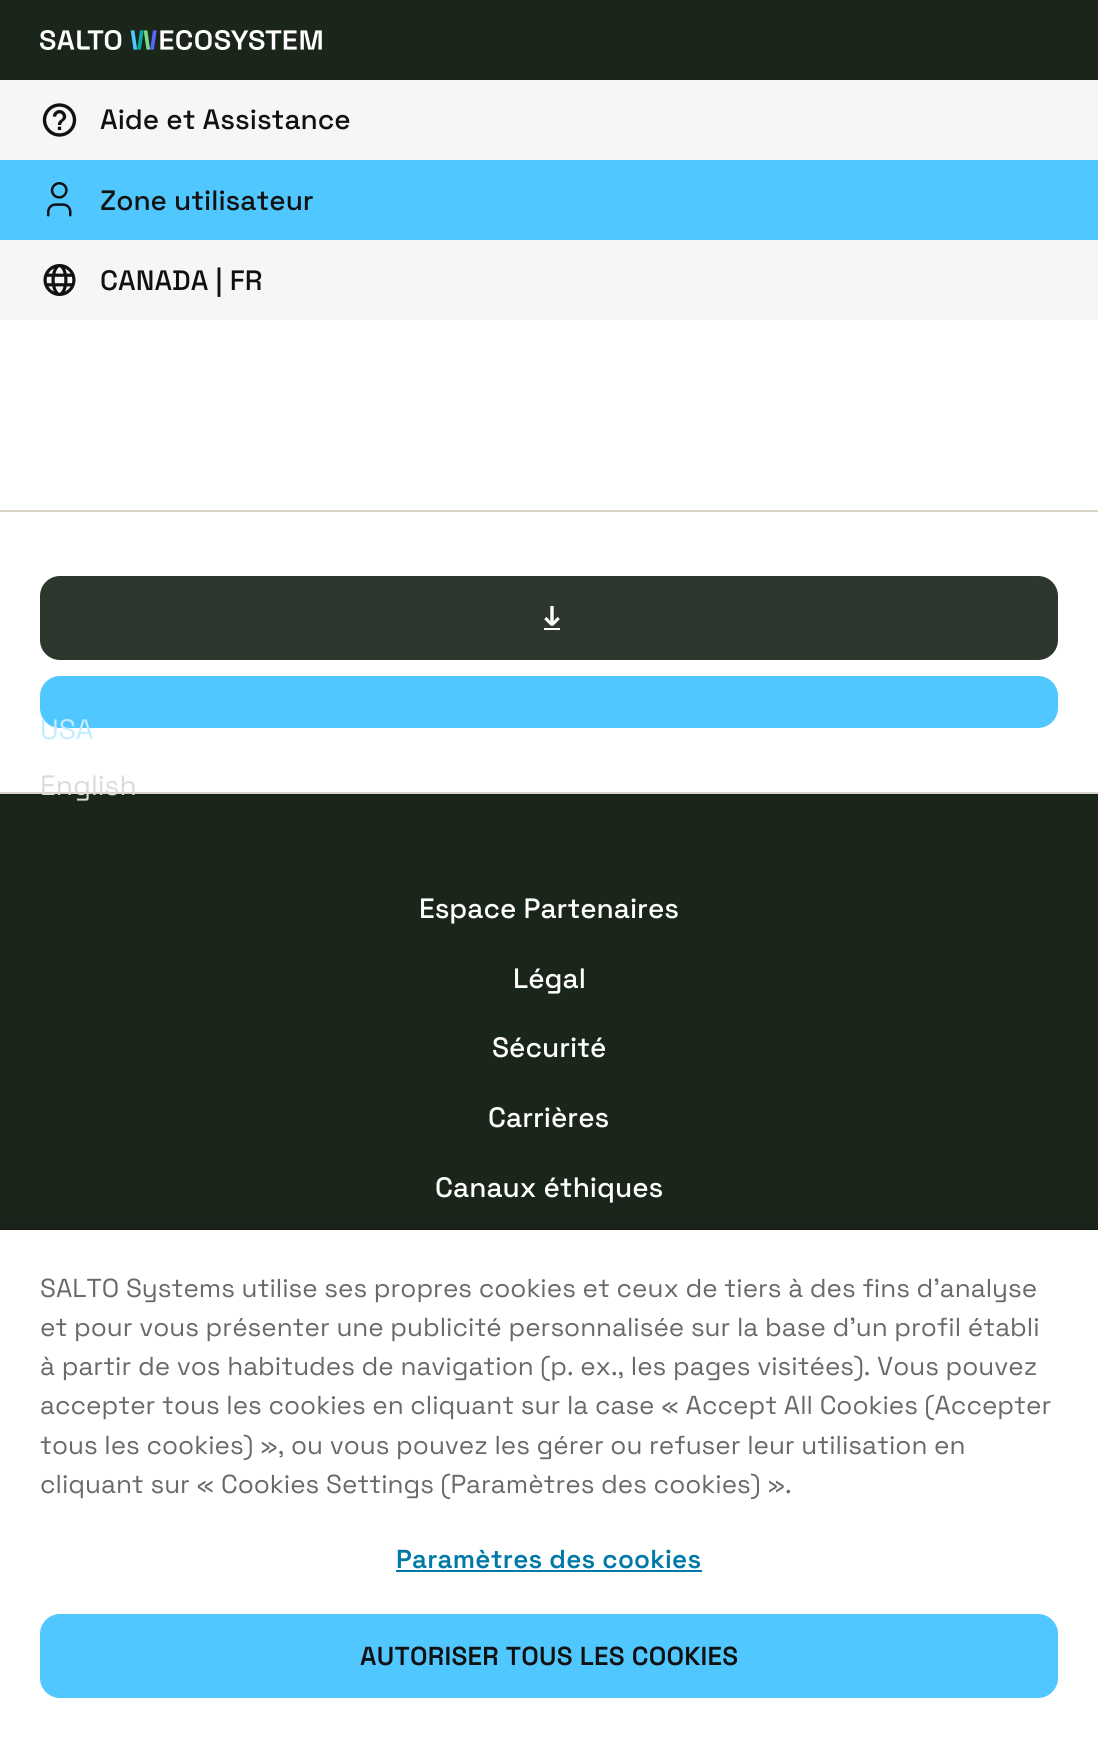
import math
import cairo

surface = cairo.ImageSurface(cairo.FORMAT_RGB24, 1098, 1738)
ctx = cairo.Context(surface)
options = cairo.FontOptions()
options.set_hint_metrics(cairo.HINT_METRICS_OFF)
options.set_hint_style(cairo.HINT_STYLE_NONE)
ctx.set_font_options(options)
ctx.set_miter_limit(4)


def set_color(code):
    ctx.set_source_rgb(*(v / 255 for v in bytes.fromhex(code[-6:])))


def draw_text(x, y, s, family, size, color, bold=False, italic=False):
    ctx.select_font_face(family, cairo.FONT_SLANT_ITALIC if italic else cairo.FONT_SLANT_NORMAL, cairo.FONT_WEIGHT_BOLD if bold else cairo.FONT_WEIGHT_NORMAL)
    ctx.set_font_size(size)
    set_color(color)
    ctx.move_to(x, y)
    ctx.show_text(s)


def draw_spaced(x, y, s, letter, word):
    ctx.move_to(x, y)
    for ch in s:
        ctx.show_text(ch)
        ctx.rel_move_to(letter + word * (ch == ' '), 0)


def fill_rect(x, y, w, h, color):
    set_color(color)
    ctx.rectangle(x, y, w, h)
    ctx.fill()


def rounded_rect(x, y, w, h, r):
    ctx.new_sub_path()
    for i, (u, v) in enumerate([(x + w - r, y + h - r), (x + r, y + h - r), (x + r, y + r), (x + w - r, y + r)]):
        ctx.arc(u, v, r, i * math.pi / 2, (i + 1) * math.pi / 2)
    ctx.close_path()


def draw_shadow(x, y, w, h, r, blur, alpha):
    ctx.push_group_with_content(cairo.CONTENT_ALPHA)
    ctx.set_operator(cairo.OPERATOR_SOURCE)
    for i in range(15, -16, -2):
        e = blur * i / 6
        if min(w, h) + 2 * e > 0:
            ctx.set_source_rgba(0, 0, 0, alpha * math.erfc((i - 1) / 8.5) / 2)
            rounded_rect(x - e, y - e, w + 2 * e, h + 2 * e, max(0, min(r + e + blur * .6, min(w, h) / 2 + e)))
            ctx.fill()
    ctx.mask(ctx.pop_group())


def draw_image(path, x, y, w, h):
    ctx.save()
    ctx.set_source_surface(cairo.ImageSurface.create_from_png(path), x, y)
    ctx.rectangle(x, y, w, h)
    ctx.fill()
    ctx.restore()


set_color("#ffffff")
ctx.paint()
fill_rect(0, 0, 1098, 80, "#1b261b")
draw_image("assets/img1.png", 40, 30, 282, 20)
fill_rect(0, 80, 1098, 80, "#f6f6f6")
draw_image("assets/img2.png", 42, 103, 35, 34)
draw_text(100, 129, "Aide et Assistance", "Space Grotesk Medium", 28, "#111111")
fill_rect(0, 160, 1098, 80, "#50c8ff")
draw_image("assets/img3.png", 47, 182, 25, 35)
draw_text(100, 210, "Zone utilisateur", "Space Grotesk Medium", 28, "#111111")
fill_rect(0, 240, 1098, 80, "#f6f6f6")
draw_image("assets/img4.png", 43, 264, 33, 32)
draw_text(100, 290, "CANADA | FR", "Space Grotesk Medium", 28, "#111111")
set_color("#50c8ff")
rounded_rect(40, 676, 1018, 52, 20)
ctx.fill()
draw_text(40, 739, "USA", "Space Grotesk", 28, "#c4ecff")
fill_rect(0, 794, 1098, 436, "#1b261b")
fill_rect(0, 792, 1098, 2, "#dbd5c9")
draw_text(40, 795, "English", "Space Grotesk", 28, "#dbdcd9")
fill_rect(0, 510, 1098, 2, "#dbd5c9")
set_color("#2d372d")
rounded_rect(40, 576, 1018, 84, 20)
ctx.fill()
draw_image("assets/img5.png", 544, 605, 16, 25)
draw_text(419, 918, "Espace Partenaires", "Space Grotesk Medium", 28, "#ffffff")
draw_text(513, 988, "Légal", "Space Grotesk Medium", 28, "#ffffff")
draw_text(492, 1057, "Sécurité", "Space Grotesk Medium", 28, "#ffffff")
draw_text(488, 1127, "Carrières", "Space Grotesk Medium", 28, "#ffffff")
draw_text(435, 1197, "Canaux éthiques", "Space Grotesk Medium", 28, "#ffffff")
set_color("#000000")
draw_shadow(0, 1230, 1098, 508, 0, 18, 0.2)
fill_rect(0, 1230, 1098, 508, "#ffffff")
draw_text(40, 1297, "SALTO Systems utilise ses propres cookies et ceux de tiers à des fins d'analyse", "Space Grotesk", 26, "#696969")
draw_text(40, 1336, "et pour vous présenter une publicité personnalisée sur la base d'un profil établi", "Space Grotesk", 26, "#696969")
draw_text(40, 1375, "à partir de vos habitudes de navigation (p. ex., les pages visitées). Vous pouvez", "Space Grotesk", 26, "#696969")
draw_text(40, 1414, "accepter tous les cookies en cliquant sur la case « Accept All Cookies (Accepter", "Space Grotesk", 26, "#696969")
draw_text(40, 1454, "tous les cookies) », ou vous pouvez les gérer ou refuser leur utilisation en", "Space Grotesk", 26, "#696969")
draw_text(40, 1493, "cliquant sur « Cookies Settings (Paramètres des cookies) ».", "Space Grotesk", 26, "#696969")
ctx.select_font_face("Space Grotesk SemiBold")
set_color("#0078a8")
draw_spaced(396, 1568, "Paramètres des cookies", 0.25, 0)
fill_rect(396, 1570, 306, 2, "#0078a8")
set_color("#50c8ff")
rounded_rect(41, 1615, 1016, 82, 19)
ctx.fill_preserve()
ctx.stroke()
set_color("#111111")
draw_spaced(360, 1665, "AUTORISER TOUS LES COOKIES", 0.25, 0)
surface.write_to_png("output.png")
